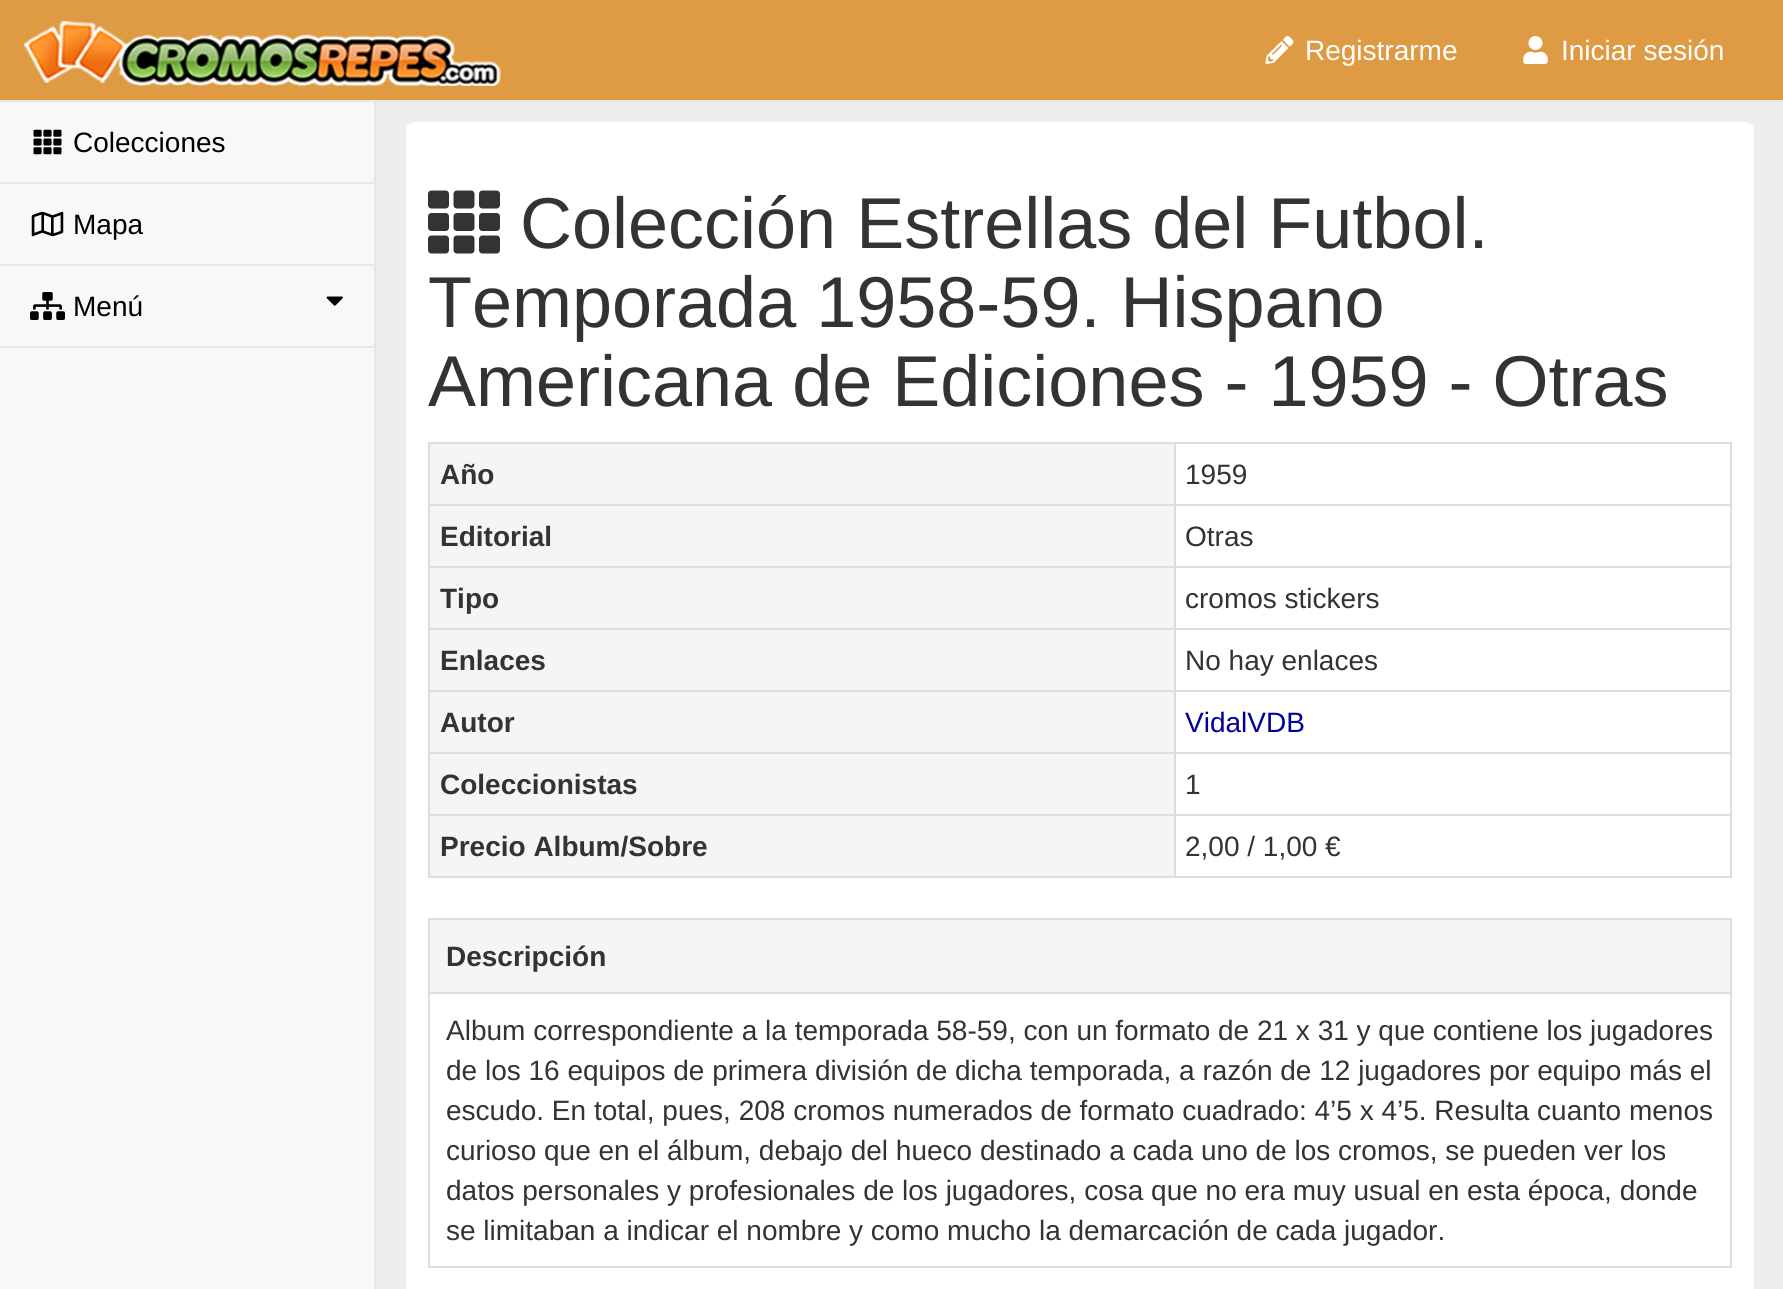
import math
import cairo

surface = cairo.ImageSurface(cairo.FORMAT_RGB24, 1783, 1289)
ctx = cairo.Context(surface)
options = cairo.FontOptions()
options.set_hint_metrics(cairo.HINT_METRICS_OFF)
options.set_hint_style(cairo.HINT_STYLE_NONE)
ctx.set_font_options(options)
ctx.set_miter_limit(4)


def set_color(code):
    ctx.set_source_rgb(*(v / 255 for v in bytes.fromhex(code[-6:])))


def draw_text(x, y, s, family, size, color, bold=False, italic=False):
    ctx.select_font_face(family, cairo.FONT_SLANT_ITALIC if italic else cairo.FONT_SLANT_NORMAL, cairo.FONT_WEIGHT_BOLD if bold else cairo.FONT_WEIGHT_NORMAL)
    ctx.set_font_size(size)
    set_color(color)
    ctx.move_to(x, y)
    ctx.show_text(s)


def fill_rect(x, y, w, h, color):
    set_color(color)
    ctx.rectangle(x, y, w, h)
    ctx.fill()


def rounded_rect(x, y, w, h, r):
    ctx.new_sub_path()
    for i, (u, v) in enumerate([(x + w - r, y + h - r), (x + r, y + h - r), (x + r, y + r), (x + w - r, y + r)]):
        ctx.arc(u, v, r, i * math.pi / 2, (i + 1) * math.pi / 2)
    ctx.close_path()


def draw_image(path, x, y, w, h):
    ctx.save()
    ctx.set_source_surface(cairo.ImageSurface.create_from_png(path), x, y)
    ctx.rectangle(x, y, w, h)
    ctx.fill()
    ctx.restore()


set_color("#f8f8f8")
ctx.paint()
fill_rect(0, 0, 1783, 100, "#df9b44")
fill_rect(0, 100, 1783, 2, "#e7e7e7")
draw_image("assets/img1.png", 24, 21, 477, 65)
draw_image("assets/img2.png", 1265, 36, 29, 28)
draw_text(1305, 60, "Registrarme", "Liberation Sans", 28, "#ffffff")
draw_image("assets/img3.png", 1523, 36, 25, 28)
draw_text(1561, 60, "Iniciar sesión", "Liberation Sans", 28, "#ffffff")
fill_rect(0, 182, 374, 2, "#e7e7e7")
draw_image("assets/img4.png", 33, 129, 29, 26)
draw_text(73, 152, "Colecciones", "Liberation Sans", 28, "#000000")
fill_rect(0, 264, 374, 2, "#e7e7e7")
draw_image("assets/img5.png", 31, 211, 33, 26)
draw_text(73, 234, "Mapa", "Liberation Sans", 28, "#000000")
fill_rect(0, 346, 374, 2, "#e7e7e7")
draw_image("assets/img6.png", 30, 292, 35, 28)
draw_text(73, 316, "Menú", "Liberation Sans", 28, "#000000")
draw_image("assets/img7.png", 326, 296, 17, 10)
fill_rect(376, 102, 1407, 1187, "#eeeeee")
fill_rect(374, 102, 2, 1187, "#e7e7e7")
set_color("#ffffff")
rounded_rect(406, 122, 1348, 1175, 8)
ctx.fill()
draw_image("assets/img8.png", 428, 190, 72, 64)
draw_text(520, 248, "Colección Estrellas del Futbol.", "Liberation Sans", 72, "#333333")
draw_text(428, 327, "Temporada 1958-59. Hispano", "Liberation Sans", 72, "#333333")
draw_text(428, 406, "Americana de Ediciones - 1959 - Otras", "Liberation Sans", 72, "#333333")
fill_rect(428, 442, 1304, 2, "#dddddd")
fill_rect(1730, 442, 2, 436, "#dddddd")
fill_rect(428, 876, 1304, 2, "#dddddd")
fill_rect(428, 442, 2, 436, "#dddddd")
fill_rect(430, 444, 744, 60, "#f5f5f5")
draw_text(440, 484, "Año", "Liberation Sans", 28, "#333333", bold=True)
fill_rect(1174, 504, 558, 2, "#dddddd")
fill_rect(1174, 566, 558, 2, "#dddddd")
fill_rect(1174, 628, 558, 2, "#dddddd")
fill_rect(1174, 690, 558, 2, "#dddddd")
fill_rect(1174, 752, 558, 2, "#dddddd")
fill_rect(1174, 814, 558, 2, "#dddddd")
fill_rect(1174, 814, 2, 64, "#dddddd")
fill_rect(428, 814, 748, 2, "#dddddd")
fill_rect(1174, 752, 2, 64, "#dddddd")
fill_rect(428, 752, 748, 2, "#dddddd")
fill_rect(1174, 690, 2, 64, "#dddddd")
fill_rect(428, 690, 748, 2, "#dddddd")
fill_rect(1174, 628, 2, 64, "#dddddd")
fill_rect(428, 628, 748, 2, "#dddddd")
fill_rect(1174, 566, 2, 64, "#dddddd")
fill_rect(428, 566, 748, 2, "#dddddd")
fill_rect(1174, 504, 2, 64, "#dddddd")
fill_rect(428, 504, 748, 2, "#dddddd")
fill_rect(1174, 442, 2, 64, "#dddddd")
draw_text(1185, 484, "1959", "Liberation Sans", 28, "#333333")
fill_rect(430, 506, 744, 60, "#f5f5f5")
draw_text(440, 546, "Editorial", "Liberation Sans", 28, "#333333", bold=True)
draw_text(1185, 546, "Otras", "Liberation Sans", 28, "#333333")
fill_rect(430, 568, 744, 60, "#f5f5f5")
draw_text(440, 608, "Tipo", "Liberation Sans", 28, "#333333", bold=True)
draw_text(1185, 608, "cromos stickers", "Liberation Sans", 28, "#333333")
fill_rect(430, 630, 744, 60, "#f5f5f5")
draw_text(440, 670, "Enlaces", "Liberation Sans", 28, "#333333", bold=True)
draw_text(1185, 670, "No hay enlaces", "Liberation Sans", 28, "#333333")
fill_rect(430, 692, 744, 60, "#f5f5f5")
draw_text(440, 732, "Autor", "Liberation Sans", 28, "#333333", bold=True)
draw_text(1185, 732, "VidalVDB", "Liberation Sans", 28, "#000099")
fill_rect(430, 754, 744, 60, "#f5f5f5")
draw_text(440, 794, "Coleccionistas", "Liberation Sans", 28, "#333333", bold=True)
draw_text(1185, 794, "1", "Liberation Sans", 28, "#333333")
fill_rect(430, 816, 744, 60, "#f5f5f5")
draw_text(440, 856, "Precio Album/Sobre", "Liberation Sans", 28, "#333333", bold=True)
draw_text(1185, 856, "2,00 / 1,00 €", "Liberation Sans", 28, "#333333")
fill_rect(428, 918, 1304, 2, "#dddddd")
fill_rect(1730, 918, 2, 350, "#dddddd")
fill_rect(428, 1266, 1304, 2, "#dddddd")
fill_rect(428, 918, 2, 350, "#dddddd")
fill_rect(430, 920, 1300, 72, "#f5f5f5")
draw_text(446, 966, "Descripción", "Liberation Sans", 28, "#333333", bold=True)
fill_rect(428, 992, 1304, 2, "#dddddd")
draw_text(446, 1040, "Album correspondiente a la temporada 58-59, con un formato de 21 x 31 y que contiene los jugadores", "Liberation Sans", 28, "#333333")
draw_text(446, 1080, "de los 16 equipos de primera división de dicha temporada, a razón de 12 jugadores por equipo más el", "Liberation Sans", 28, "#333333")
draw_text(446, 1120, "escudo. En total, pues, 208 cromos numerados de formato cuadrado: 4’5 x 4’5. Resulta cuanto menos", "Liberation Sans", 28, "#333333")
draw_text(446, 1160, "curioso que en el álbum, debajo del hueco destinado a cada uno de los cromos, se pueden ver los", "Liberation Sans", 28, "#333333")
draw_text(446, 1200, "datos personales y profesionales de los jugadores, cosa que no era muy usual en esta época, donde", "Liberation Sans", 28, "#333333")
draw_text(446, 1240, "se limitaban a indicar el nombre y como mucho la demarcación de cada jugador.", "Liberation Sans", 28, "#333333")
surface.write_to_png("output.png")
